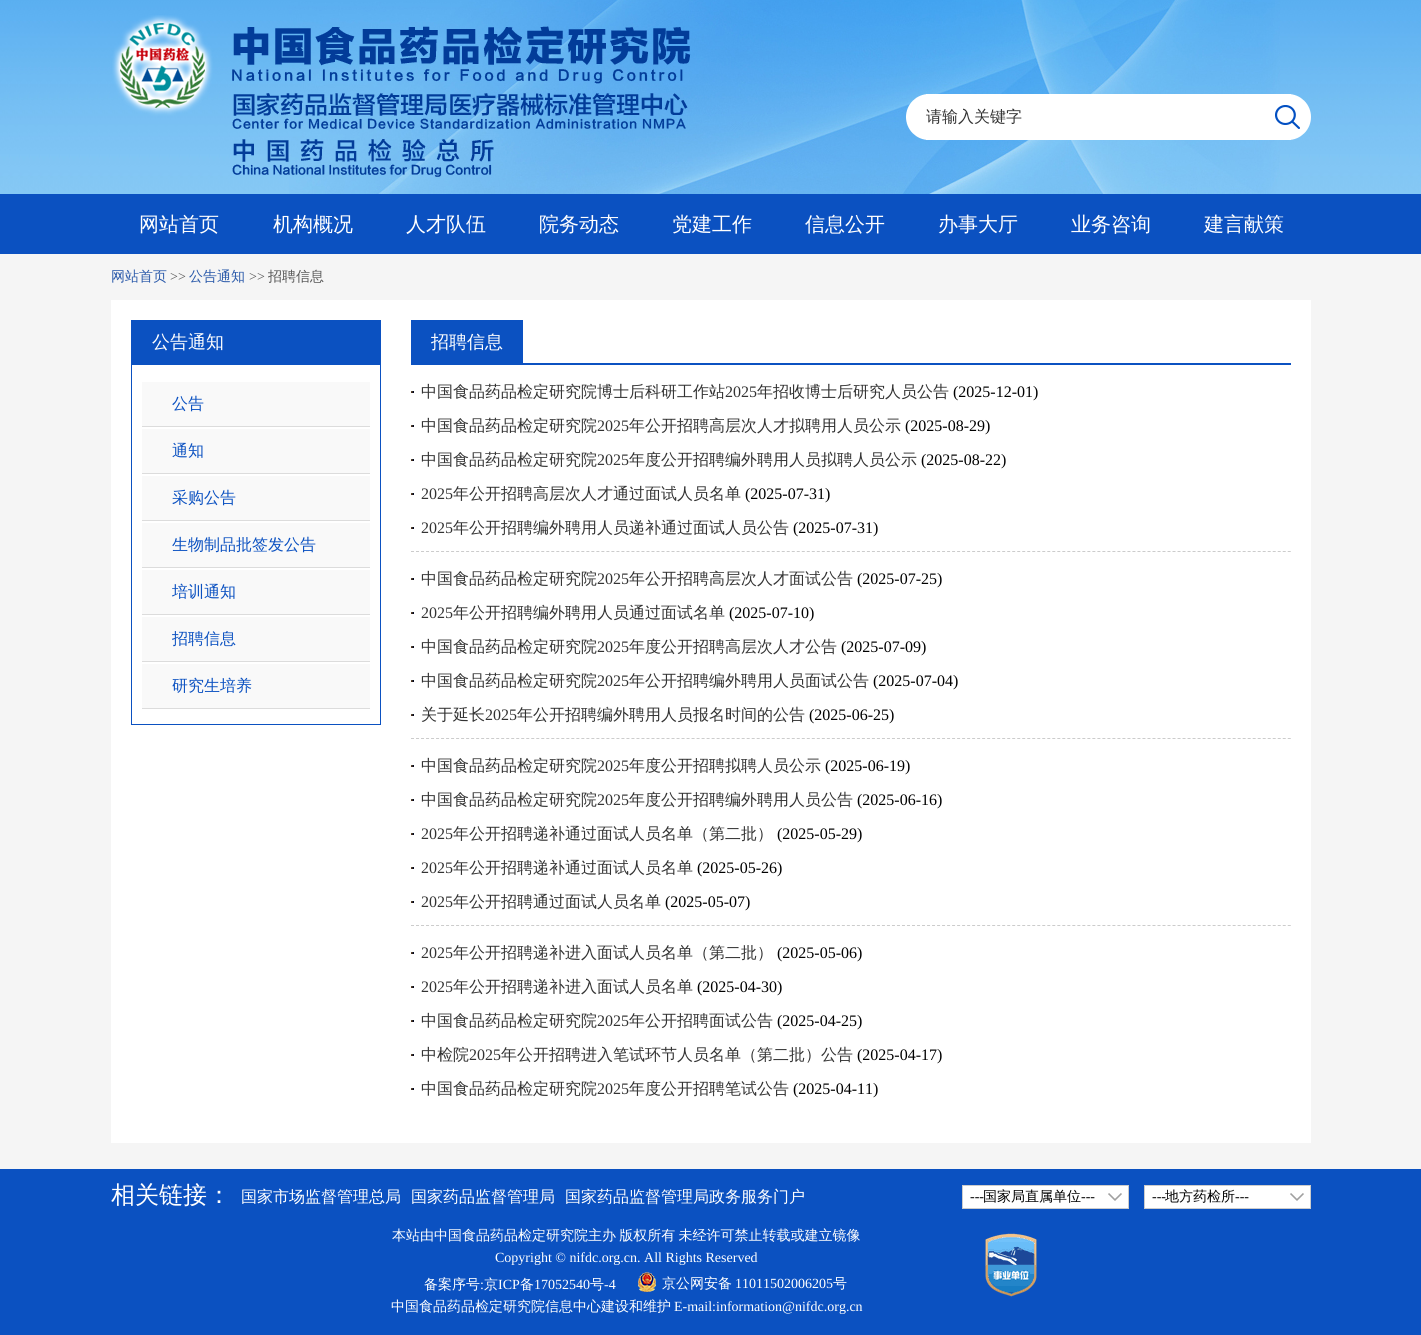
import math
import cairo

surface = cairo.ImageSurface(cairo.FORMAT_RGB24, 1421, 1335)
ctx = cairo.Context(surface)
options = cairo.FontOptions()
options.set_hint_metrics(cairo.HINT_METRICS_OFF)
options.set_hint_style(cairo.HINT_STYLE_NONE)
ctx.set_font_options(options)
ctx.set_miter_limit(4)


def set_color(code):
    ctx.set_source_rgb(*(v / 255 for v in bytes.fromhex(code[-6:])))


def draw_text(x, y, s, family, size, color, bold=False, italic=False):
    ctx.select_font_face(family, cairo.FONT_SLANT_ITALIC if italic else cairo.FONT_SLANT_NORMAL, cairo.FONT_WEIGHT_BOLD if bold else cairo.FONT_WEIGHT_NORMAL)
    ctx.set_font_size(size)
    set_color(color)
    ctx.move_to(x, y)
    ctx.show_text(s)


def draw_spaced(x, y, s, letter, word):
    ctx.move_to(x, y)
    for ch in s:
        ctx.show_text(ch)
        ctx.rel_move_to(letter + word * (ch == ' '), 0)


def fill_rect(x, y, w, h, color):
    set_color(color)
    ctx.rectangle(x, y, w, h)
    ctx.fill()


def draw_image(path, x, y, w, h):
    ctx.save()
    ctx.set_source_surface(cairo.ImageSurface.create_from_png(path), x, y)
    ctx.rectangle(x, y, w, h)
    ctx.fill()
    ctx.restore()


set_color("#f5f5f5")
ctx.paint()
draw_image("assets/img1.png", 0, 0, 1421, 194)
draw_image("assets/img2.png", 289, 0, 991, 194)
draw_image("assets/img3.png", 112, 15, 579, 162)
draw_image("assets/img4.png", 906, 94, 20, 46)
fill_rect(926, 94, 365, 46, "#ffffff")
draw_text(926, 122, "请输入关键字", "WenQuanYi Zen Hei Medium", 16, "#333333")
draw_image("assets/img6.png", 1291, 94, 20, 46)
draw_image("assets/img5.png", 1275, 105, 25, 24)
fill_rect(0, 194, 1421, 60, "#0b51c1")
draw_text(139, 231, "网站首页", "WenQuanYi Zen Hei Medium", 20, "#ffffff")
draw_text(273, 231, "机构概况", "WenQuanYi Zen Hei Medium", 20, "#ffffff")
draw_text(406, 231, "人才队伍", "WenQuanYi Zen Hei Medium", 20, "#ffffff")
draw_text(539, 231, "院务动态", "WenQuanYi Zen Hei Medium", 20, "#ffffff")
draw_text(672, 231, "党建工作", "WenQuanYi Zen Hei Medium", 20, "#ffffff")
draw_text(805, 231, "信息公开", "WenQuanYi Zen Hei Medium", 20, "#ffffff")
draw_text(938, 231, "办事大厅", "WenQuanYi Zen Hei Medium", 20, "#ffffff")
draw_text(1071, 231, "业务咨询", "WenQuanYi Zen Hei Medium", 20, "#ffffff")
draw_text(1204, 231, "建言献策", "WenQuanYi Zen Hei Medium", 20, "#ffffff")
draw_text(111, 281, "网站首页", "WenQuanYi Zen Hei Medium", 14, "#2b5aaa")
draw_text(170, 281, ">>", "Liberation Serif", 14, "#565656")
draw_text(189, 281, "公告通知", "WenQuanYi Zen Hei Medium", 14, "#2b5aaa")
draw_text(249, 281, ">>", "Liberation Serif", 14, "#565656")
draw_text(268, 281, "招聘信息", "WenQuanYi Zen Hei Medium", 14, "#565656")
fill_rect(111, 300, 1200, 843, "#ffffff")
fill_rect(380, 320, 1, 405, "#0b51c1")
fill_rect(131, 724, 250, 1, "#0b51c1")
fill_rect(131, 320, 1, 405, "#0b51c1")
fill_rect(132, 320, 248, 45, "#0b51c1")
draw_text(152, 348, "公告通知", "WenQuanYi Zen Hei Medium", 18, "#ffffff")
fill_rect(142, 382, 228, 44, "#f9f9f9")
fill_rect(142, 426, 228, 1, "#dcdcdc")
draw_text(172, 409, "公告", "WenQuanYi Zen Hei Medium", 16, "#0b51c1")
fill_rect(142, 429, 228, 44, "#f9f9f9")
fill_rect(142, 473, 228, 1, "#dcdcdc")
draw_text(172, 456, "通知", "WenQuanYi Zen Hei Medium", 16, "#0b51c1")
fill_rect(142, 476, 228, 44, "#f9f9f9")
fill_rect(142, 520, 228, 1, "#dcdcdc")
draw_text(172, 503, "采购公告", "WenQuanYi Zen Hei Medium", 16, "#0b51c1")
fill_rect(142, 523, 228, 44, "#f9f9f9")
fill_rect(142, 567, 228, 1, "#dcdcdc")
draw_text(172, 550, "生物制品批签发公告", "WenQuanYi Zen Hei Medium", 16, "#0b51c1")
fill_rect(142, 570, 228, 44, "#f9f9f9")
fill_rect(142, 614, 228, 1, "#dcdcdc")
draw_text(172, 597, "培训通知", "WenQuanYi Zen Hei Medium", 16, "#0b51c1")
fill_rect(142, 617, 228, 44, "#f9f9f9")
fill_rect(142, 661, 228, 1, "#dcdcdc")
draw_text(172, 644, "招聘信息", "WenQuanYi Zen Hei Medium", 16, "#0b51c1")
fill_rect(142, 664, 228, 44, "#f9f9f9")
fill_rect(142, 708, 228, 1, "#dcdcdc")
draw_text(172, 691, "研究生培养", "WenQuanYi Zen Hei Medium", 16, "#0b51c1")
fill_rect(411, 320, 112, 45, "#0b51c1")
draw_text(431, 348, "招聘信息", "WenQuanYi Zen Hei Medium", 18, "#ffffff")
fill_rect(523, 363, 768, 2, "#0b51c1")
draw_image("assets/img7.png", 411, 391, 3, 2)
draw_text(421, 397, "中国食品药品检定研究院博士后科研工作站", "WenQuanYi Zen Hei Medium", 16, "#333333")
draw_text(725, 397, "2025", "Liberation Serif", 16, "#333333")
draw_text(757, 397, "年招收博士后研究人员公告", "WenQuanYi Zen Hei Medium", 16, "#333333")
draw_text(953, 397, "(2025-12-01)", "Liberation Serif", 16, "#000000")
draw_image("assets/img7.png", 411, 425, 3, 2)
draw_text(421, 431, "中国食品药品检定研究院", "WenQuanYi Zen Hei Medium", 16, "#333333")
draw_text(597, 431, "2025", "Liberation Serif", 16, "#333333")
draw_text(629, 431, "年公开招聘高层次人才拟聘用人员公示", "WenQuanYi Zen Hei Medium", 16, "#333333")
draw_text(905, 431, "(2025-08-29)", "Liberation Serif", 16, "#000000")
draw_image("assets/img7.png", 411, 459, 3, 2)
draw_text(421, 465, "中国食品药品检定研究院", "WenQuanYi Zen Hei Medium", 16, "#333333")
draw_text(597, 465, "2025", "Liberation Serif", 16, "#333333")
draw_text(629, 465, "年度公开招聘编外聘用人员拟聘人员公示", "WenQuanYi Zen Hei Medium", 16, "#333333")
draw_text(921, 465, "(2025-08-22)", "Liberation Serif", 16, "#000000")
draw_image("assets/img7.png", 411, 493, 3, 2)
draw_text(421, 499, "2025", "Liberation Serif", 16, "#333333")
draw_text(453, 499, "年公开招聘高层次人才通过面试人员名单", "WenQuanYi Zen Hei Medium", 16, "#333333")
draw_text(745, 499, "(2025-07-31)", "Liberation Serif", 16, "#000000")
draw_image("assets/img7.png", 411, 527, 3, 2)
ctx.new_path()
ctx.move_to(411, 551.5)
ctx.line_to(1291, 551.5)
set_color("#cccccc")
ctx.set_line_width(1)
ctx.set_dash([3, 2.01])
ctx.stroke()
draw_text(421, 533, "2025", "Liberation Serif", 16, "#333333")
draw_text(453, 533, "年公开招聘编外聘用人员递补通过面试人员公告", "WenQuanYi Zen Hei Medium", 16, "#333333")
draw_text(793, 533, "(2025-07-31)", "Liberation Serif", 16, "#000000")
draw_image("assets/img7.png", 411, 578, 3, 2)
draw_text(421, 584, "中国食品药品检定研究院", "WenQuanYi Zen Hei Medium", 16, "#333333")
draw_text(597, 584, "2025", "Liberation Serif", 16, "#333333")
draw_text(629, 584, "年公开招聘高层次人才面试公告", "WenQuanYi Zen Hei Medium", 16, "#333333")
draw_text(857, 584, "(2025-07-25)", "Liberation Serif", 16, "#000000")
draw_image("assets/img7.png", 411, 612, 3, 2)
draw_text(421, 618, "2025", "Liberation Serif", 16, "#333333")
draw_text(453, 618, "年公开招聘编外聘用人员通过面试名单", "WenQuanYi Zen Hei Medium", 16, "#333333")
draw_text(729, 618, "(2025-07-10)", "Liberation Serif", 16, "#000000")
draw_image("assets/img7.png", 411, 646, 3, 2)
draw_text(421, 652, "中国食品药品检定研究院", "WenQuanYi Zen Hei Medium", 16, "#333333")
draw_text(597, 652, "2025", "Liberation Serif", 16, "#333333")
draw_text(629, 652, "年度公开招聘高层次人才公告", "WenQuanYi Zen Hei Medium", 16, "#333333")
draw_text(841, 652, "(2025-07-09)", "Liberation Serif", 16, "#000000")
draw_image("assets/img7.png", 411, 680, 3, 2)
draw_text(421, 686, "中国食品药品检定研究院", "WenQuanYi Zen Hei Medium", 16, "#333333")
draw_text(597, 686, "2025", "Liberation Serif", 16, "#333333")
draw_text(629, 686, "年公开招聘编外聘用人员面试公告", "WenQuanYi Zen Hei Medium", 16, "#333333")
draw_text(873, 686, "(2025-07-04)", "Liberation Serif", 16, "#000000")
draw_image("assets/img7.png", 411, 714, 3, 2)
ctx.new_path()
ctx.move_to(411, 738.5)
ctx.line_to(1291, 738.5)
set_color("#cccccc")
ctx.stroke()
draw_text(421, 720, "关于延长", "WenQuanYi Zen Hei Medium", 16, "#333333")
draw_text(485, 720, "2025", "Liberation Serif", 16, "#333333")
draw_text(517, 720, "年公开招聘编外聘用人员报名时间的公告", "WenQuanYi Zen Hei Medium", 16, "#333333")
draw_text(809, 720, "(2025-06-25)", "Liberation Serif", 16, "#000000")
draw_image("assets/img7.png", 411, 765, 3, 2)
draw_text(421, 771, "中国食品药品检定研究院", "WenQuanYi Zen Hei Medium", 16, "#333333")
draw_text(597, 771, "2025", "Liberation Serif", 16, "#333333")
draw_text(629, 771, "年度公开招聘拟聘人员公示", "WenQuanYi Zen Hei Medium", 16, "#333333")
draw_text(825, 771, "(2025-06-19)", "Liberation Serif", 16, "#000000")
draw_image("assets/img7.png", 411, 799, 3, 2)
draw_text(421, 805, "中国食品药品检定研究院", "WenQuanYi Zen Hei Medium", 16, "#333333")
draw_text(597, 805, "2025", "Liberation Serif", 16, "#333333")
draw_text(629, 805, "年度公开招聘编外聘用人员公告", "WenQuanYi Zen Hei Medium", 16, "#333333")
draw_text(857, 805, "(2025-06-16)", "Liberation Serif", 16, "#000000")
draw_image("assets/img7.png", 411, 833, 3, 2)
draw_text(421, 839, "2025", "Liberation Serif", 16, "#333333")
draw_text(453, 839, "年公开招聘递补通过面试人员名单（第二批）", "WenQuanYi Zen Hei Medium", 16, "#333333")
draw_text(777, 839, "(2025-05-29)", "Liberation Serif", 16, "#000000")
draw_image("assets/img7.png", 411, 867, 3, 2)
draw_text(421, 873, "2025", "Liberation Serif", 16, "#333333")
draw_text(453, 873, "年公开招聘递补通过面试人员名单", "WenQuanYi Zen Hei Medium", 16, "#333333")
draw_text(697, 873, "(2025-05-26)", "Liberation Serif", 16, "#000000")
draw_image("assets/img7.png", 411, 901, 3, 2)
ctx.new_path()
ctx.move_to(411, 925.5)
ctx.line_to(1291, 925.5)
set_color("#cccccc")
ctx.stroke()
draw_text(421, 907, "2025", "Liberation Serif", 16, "#333333")
draw_text(453, 907, "年公开招聘通过面试人员名单", "WenQuanYi Zen Hei Medium", 16, "#333333")
draw_text(665, 907, "(2025-05-07)", "Liberation Serif", 16, "#000000")
draw_image("assets/img7.png", 411, 952, 3, 2)
draw_text(421, 958, "2025", "Liberation Serif", 16, "#333333")
draw_text(453, 958, "年公开招聘递补进入面试人员名单（第二批）", "WenQuanYi Zen Hei Medium", 16, "#333333")
draw_text(777, 958, "(2025-05-06)", "Liberation Serif", 16, "#000000")
draw_image("assets/img7.png", 411, 986, 3, 2)
draw_text(421, 992, "2025", "Liberation Serif", 16, "#333333")
draw_text(453, 992, "年公开招聘递补进入面试人员名单", "WenQuanYi Zen Hei Medium", 16, "#333333")
draw_text(697, 992, "(2025-04-30)", "Liberation Serif", 16, "#000000")
draw_image("assets/img7.png", 411, 1020, 3, 2)
draw_text(421, 1026, "中国食品药品检定研究院", "WenQuanYi Zen Hei Medium", 16, "#333333")
draw_text(597, 1026, "2025", "Liberation Serif", 16, "#333333")
draw_text(629, 1026, "年公开招聘面试公告", "WenQuanYi Zen Hei Medium", 16, "#333333")
draw_text(777, 1026, "(2025-04-25)", "Liberation Serif", 16, "#000000")
draw_image("assets/img7.png", 411, 1054, 3, 2)
draw_text(421, 1060, "中检院", "WenQuanYi Zen Hei Medium", 16, "#333333")
draw_text(469, 1060, "2025", "Liberation Serif", 16, "#333333")
draw_text(501, 1060, "年公开招聘进入笔试环节人员名单（第二批）公告", "WenQuanYi Zen Hei Medium", 16, "#333333")
draw_text(857, 1060, "(2025-04-17)", "Liberation Serif", 16, "#000000")
draw_image("assets/img7.png", 411, 1088, 3, 2)
draw_text(421, 1094, "中国食品药品检定研究院", "WenQuanYi Zen Hei Medium", 16, "#333333")
draw_text(597, 1094, "2025", "Liberation Serif", 16, "#333333")
draw_text(629, 1094, "年度公开招聘笔试公告", "WenQuanYi Zen Hei Medium", 16, "#333333")
draw_text(793, 1094, "(2025-04-11)", "Liberation Serif", 16, "#000000")
fill_rect(0, 1169, 1421, 166, "#0b51c1")
draw_text(111, 1203, "相关链接：", "WenQuanYi Zen Hei Medium", 24, "#ffffff")
draw_text(241, 1202, "国家市场监督管理总局", "WenQuanYi Zen Hei Medium", 16, "#ffffff")
draw_text(411, 1202, "国家药品监督管理局", "WenQuanYi Zen Hei Medium", 16, "#ffffff")
draw_text(565, 1202, "国家药品监督管理局政务服务门户", "WenQuanYi Zen Hei Medium", 16, "#ffffff")
fill_rect(963, 1186, 165, 22, "#ffffff")
draw_image("assets/img8.png", 1108, 1193, 14, 8)
ctx.rectangle(962.5, 1185.5, 166, 23)
set_color("#cccccc")
ctx.set_dash([])
ctx.stroke()
draw_text(970, 1201, "---", "Liberation Serif", 14, "#000000")
draw_text(983, 1201, "国家局直属单位", "WenQuanYi Zen Hei Medium", 14, "#000000")
draw_text(1081, 1201, "---", "Liberation Serif", 14, "#000000")
fill_rect(1145, 1186, 165, 22, "#ffffff")
draw_image("assets/img8.png", 1290, 1193, 14, 8)
ctx.rectangle(1144.5, 1185.5, 166, 23)
set_color("#cccccc")
ctx.stroke()
draw_text(1152, 1201, "---", "Liberation Serif", 14, "#000000")
draw_text(1165, 1201, "地方药检所", "WenQuanYi Zen Hei Medium", 14, "#000000")
draw_text(1235, 1201, "---", "Liberation Serif", 14, "#000000")
ctx.select_font_face("WenQuanYi Zen Hei Medium")
set_color("#ffffff")
draw_spaced(392, 1240, "本站由中国食品药品检定研究院主办 版权所有 未经许可禁止转载或建立镜像", 0, -1)
draw_text(495, 1262, "Copyright © nifdc.org.cn. All Rights Reserved", "Liberation Serif", 14, "#ffffff")
draw_text(424, 1289, "备案序号", "WenQuanYi Zen Hei Medium", 14, "#ffffff")
draw_text(480, 1289, ":", "Liberation Serif", 14, "#ffffff")
draw_text(484, 1289, "京", "WenQuanYi Zen Hei Medium", 14, "#ffffff")
draw_text(498, 1289, "ICP", "Liberation Serif", 14, "#ffffff")
draw_text(520, 1289, "备", "WenQuanYi Zen Hei Medium", 14, "#ffffff")
draw_text(534, 1289, "17052540", "Liberation Serif", 14, "#ffffff")
draw_text(590, 1289, "号", "WenQuanYi Zen Hei Medium", 14, "#ffffff")
draw_text(604, 1289, "-4", "Liberation Serif", 14, "#ffffff")
draw_image("assets/img9.png", 638, 1272, 18, 20)
draw_text(662, 1288, "京公网安备", "WenQuanYi Zen Hei Medium", 14, "#ffffff")
draw_text(735, 1288, "11011502006205", "Liberation Serif", 14, "#ffffff")
draw_text(833, 1288, "号", "WenQuanYi Zen Hei Medium", 14, "#ffffff")
draw_text(391, 1311, "中国食品药品检定研究院信息中心建设和维护", "WenQuanYi Zen Hei Medium", 14, "#ffffff")
draw_text(674, 1311, "E-mail:information@nifdc.org.cn", "Liberation Serif", 14, "#ffffff")
draw_image("assets/img10.png", 985, 1233, 52, 64)
surface.write_to_png("output.png")
